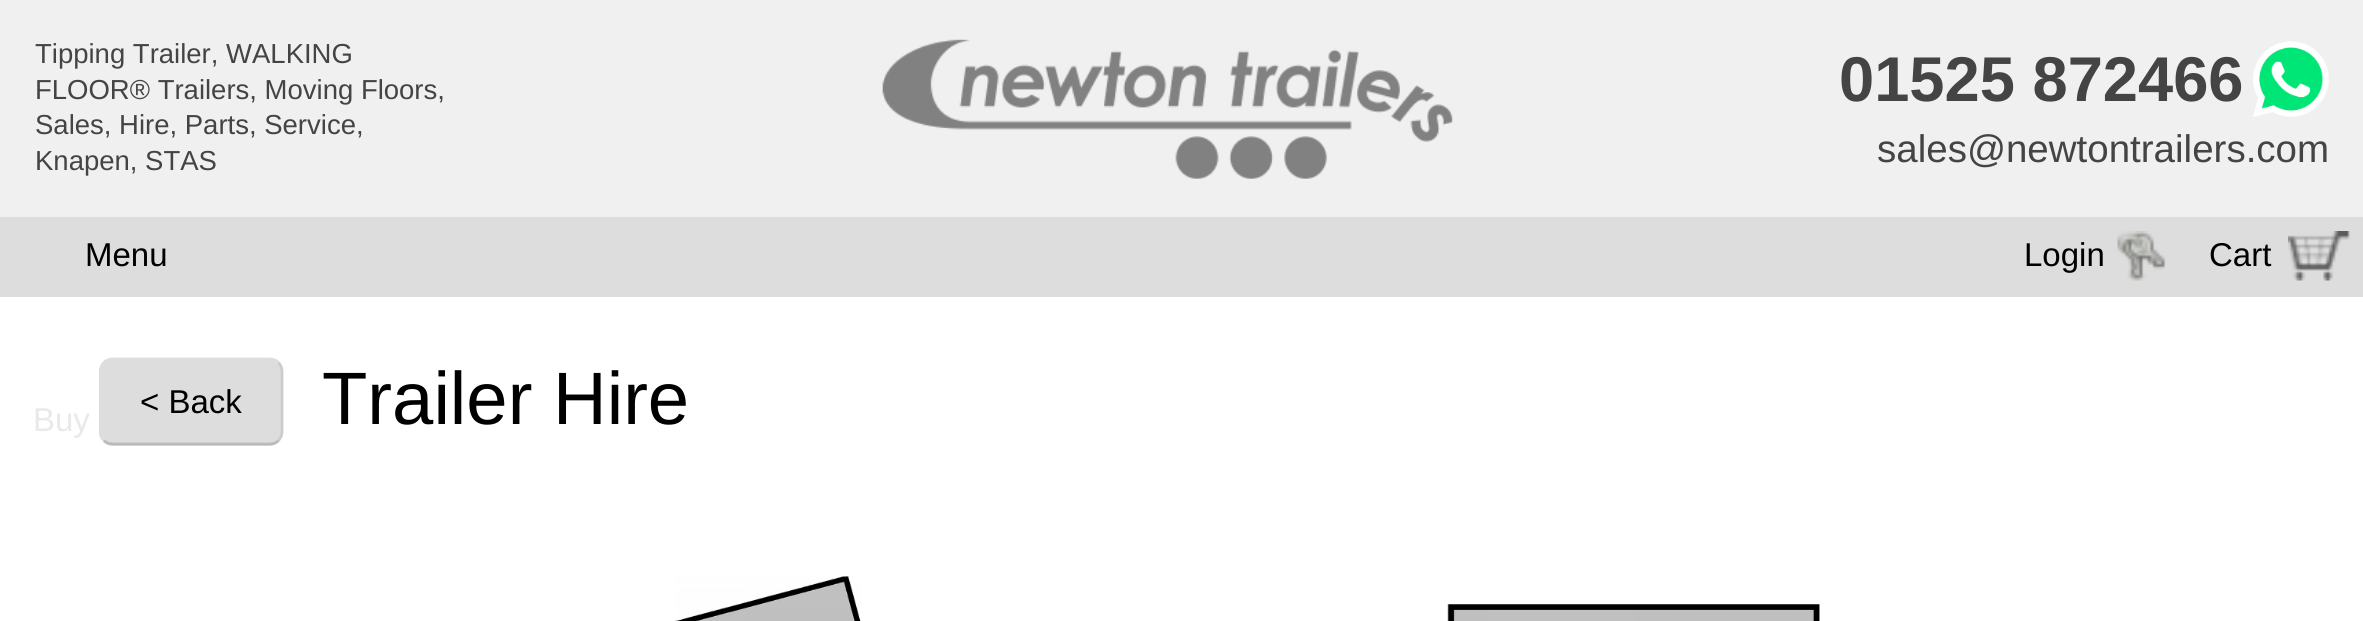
import math
import cairo

surface = cairo.ImageSurface(cairo.FORMAT_RGB24, 2363, 621)
ctx = cairo.Context(surface)
options = cairo.FontOptions()
options.set_hint_metrics(cairo.HINT_METRICS_OFF)
options.set_hint_style(cairo.HINT_STYLE_NONE)
ctx.set_font_options(options)
ctx.set_miter_limit(4)


def set_color(code):
    ctx.set_source_rgb(*(v / 255 for v in bytes.fromhex(code[-6:])))


def draw_text(x, y, s, family, size, color, bold=False, italic=False):
    ctx.select_font_face(family, cairo.FONT_SLANT_ITALIC if italic else cairo.FONT_SLANT_NORMAL, cairo.FONT_WEIGHT_BOLD if bold else cairo.FONT_WEIGHT_NORMAL)
    ctx.set_font_size(size)
    set_color(color)
    ctx.move_to(x, y)
    ctx.show_text(s)


def fill_rect(x, y, w, h, color):
    set_color(color)
    ctx.rectangle(x, y, w, h)
    ctx.fill()


def rounded_rect(x, y, w, h, r):
    ctx.new_sub_path()
    for i, (u, v) in enumerate([(x + w - r, y + h - r), (x + r, y + h - r), (x + r, y + r), (x + w - r, y + r)]):
        ctx.arc(u, v, r, i * math.pi / 2, (i + 1) * math.pi / 2)
    ctx.close_path()


def draw_image(path, x, y, w, h):
    ctx.save()
    ctx.set_source_surface(cairo.ImageSurface.create_from_png(path), x, y)
    ctx.rectangle(x, y, w, h)
    ctx.fill()
    ctx.restore()


set_color("#ffffff")
ctx.paint()
fill_rect(0, 0, 2363, 217, "#f0f0f0")
draw_text(35, 63, "Tipping Trailer, WALKING", "Liberation Sans", 27.5, "#444444")
draw_text(35, 99, "FLOOR® Trailers, Moving Floors,", "Liberation Sans", 27.5, "#444444")
draw_text(35, 134, "Sales, Hire, Parts, Service,", "Liberation Sans", 27.5, "#444444")
draw_text(35, 170, "Knapen, STAS", "Liberation Sans", 27.5, "#444444")
draw_image("assets/img1.png", 882, 39, 571, 140)
draw_text(1839, 101, "01525 872466", "Liberation Sans", 63.25, "#444444", bold=True)
draw_image("assets/img2.png", 2253, 41, 76, 76)
draw_text(1877, 162, "sales@newtontrailers.com", "Liberation Sans", 38.5, "#444444")
fill_rect(0, 217, 2363, 80, "#dddddd")
draw_text(85, 266, "Menu", "Liberation Sans", 33, "#000000")
draw_text(33, 431, "Buy", "Liberation Sans", 33, "#e9e9e9")
draw_image("assets/img3.png", 2117, 231, 49, 50)
draw_text(2024, 266, "Login", "Liberation Sans", 33, "#000000")
draw_image("assets/img4.png", 2288, 231, 62, 50)
draw_text(2209, 266, "Cart", "Liberation Sans", 33, "#000000")
set_color("#dddddd")
rounded_rect(99, 358, 184, 88, 14)
ctx.fill()
ctx.new_path()
ctx.move_to(278.5, 362.5)
ctx.curve_to(280.5, 365, 282, 368, 282, 371)
ctx.line_to(282, 432)
ctx.curve_to(282, 435, 280.5, 438, 278.5, 440.5)
set_color("#cccccc")
ctx.set_line_width(2.8)
ctx.stroke()
ctx.new_path()
ctx.move_to(278.5, 440.5)
ctx.curve_to(276, 443, 273, 444, 269.5, 444)
ctx.line_to(113, 444)
ctx.curve_to(109.5, 444, 106.5, 443, 104, 440.5)
set_color("#bbbbbb")
ctx.stroke()
ctx.new_path()
ctx.move_to(104, 440.5)
ctx.curve_to(101.5, 438, 100.5, 435, 100.5, 432)
ctx.line_to(100.5, 371)
ctx.curve_to(100.5, 368, 101.5, 365, 104, 362.5)
ctx.curve_to(106.5, 360, 109.5, 359, 113, 359)
ctx.line_to(269.5, 359)
ctx.curve_to(273, 359, 276, 360, 278.5, 362.5)
set_color("#dddddd")
ctx.stroke()
draw_text(140, 413, "< Back", "Liberation Sans", 33, "#000000")
draw_text(322, 424, "Trailer Hire", "Liberation Sans", 74.25, "#000000")
draw_image("assets/img5.png", 674, 576, 187, 45)
draw_image("assets/img6.png", 1447, 604, 373, 17)
surface.write_to_png("output.png")
